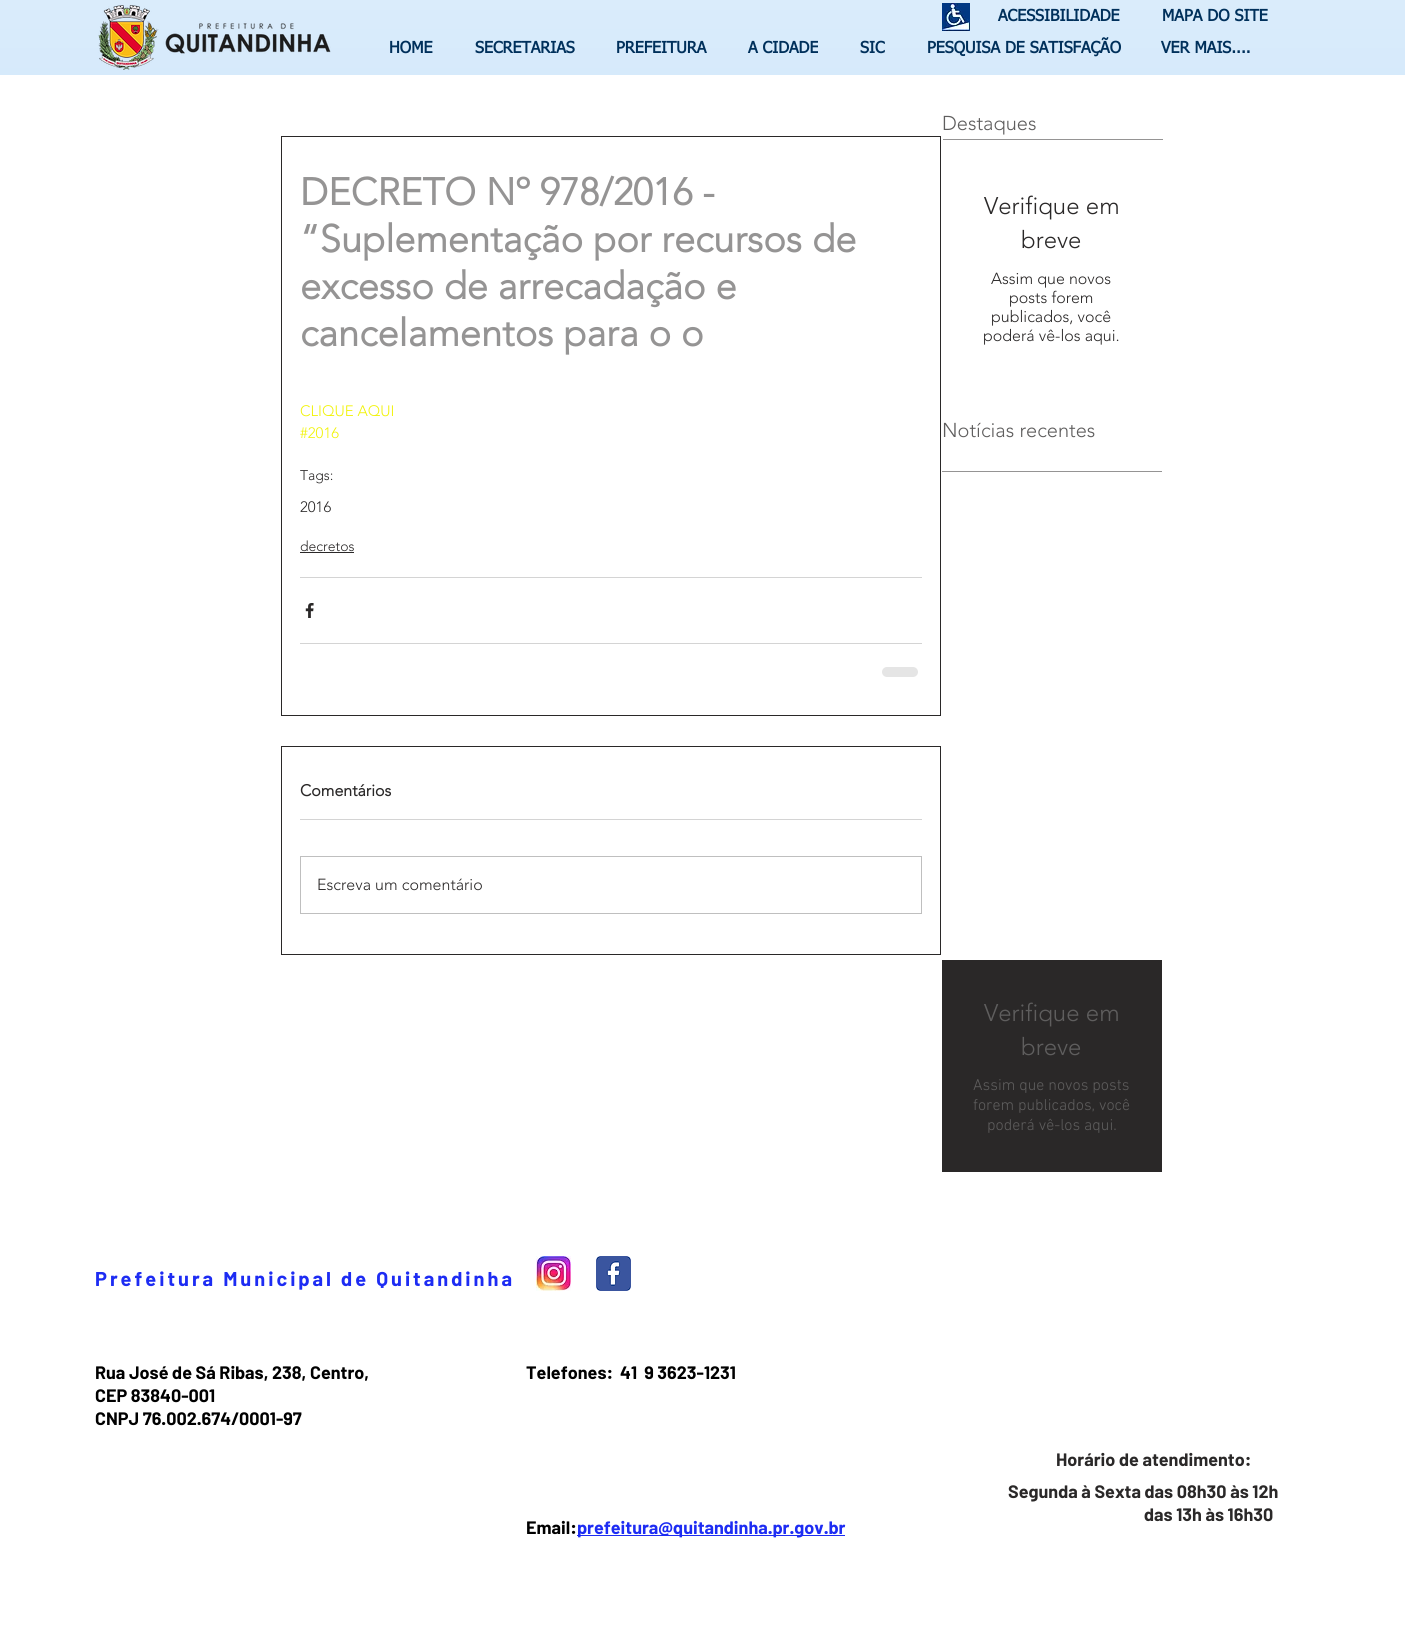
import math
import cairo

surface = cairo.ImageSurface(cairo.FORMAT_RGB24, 1405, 1644)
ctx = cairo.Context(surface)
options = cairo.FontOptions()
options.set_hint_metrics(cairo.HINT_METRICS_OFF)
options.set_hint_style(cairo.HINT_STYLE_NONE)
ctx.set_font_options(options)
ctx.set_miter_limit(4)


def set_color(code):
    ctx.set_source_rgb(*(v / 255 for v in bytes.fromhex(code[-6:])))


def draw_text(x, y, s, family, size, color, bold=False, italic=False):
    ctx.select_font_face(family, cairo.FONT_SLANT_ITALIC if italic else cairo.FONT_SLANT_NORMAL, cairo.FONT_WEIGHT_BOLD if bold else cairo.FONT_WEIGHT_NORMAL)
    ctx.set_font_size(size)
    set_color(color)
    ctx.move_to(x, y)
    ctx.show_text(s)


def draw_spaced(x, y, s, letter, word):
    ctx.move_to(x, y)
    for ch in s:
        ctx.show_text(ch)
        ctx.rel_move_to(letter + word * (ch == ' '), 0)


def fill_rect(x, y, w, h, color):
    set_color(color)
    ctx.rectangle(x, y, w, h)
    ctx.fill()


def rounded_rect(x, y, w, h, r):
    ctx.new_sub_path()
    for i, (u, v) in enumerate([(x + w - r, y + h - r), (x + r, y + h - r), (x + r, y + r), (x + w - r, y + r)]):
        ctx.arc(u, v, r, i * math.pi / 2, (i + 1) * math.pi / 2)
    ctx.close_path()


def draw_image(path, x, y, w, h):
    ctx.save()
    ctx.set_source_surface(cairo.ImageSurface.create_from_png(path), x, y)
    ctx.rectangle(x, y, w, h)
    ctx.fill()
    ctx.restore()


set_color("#ffffff")
ctx.paint()
fill_rect(0, 0, 1405, 75, "#cde5fa")
draw_image("assets/img1.png", 0, 0, 1405, 75)
draw_image("assets/img2.png", 98, 5, 233, 65)
draw_image("assets/img3.png", 942, 3, 28, 28)
draw_text(998, 21, "ACESSIBILIDADE", "tahoma", 16, "#00305b", bold=True)
draw_text(1162, 21, "MAPA DO SITE", "tahoma", 16, "#00305b", bold=True)
draw_text(389, 53, "HOME", "tahoma", 16, "#00305b", bold=True)
draw_text(475, 53, "SECRETARIAS", "tahoma", 16, "#00305b", bold=True)
draw_text(616, 53, "PREFEITURA", "tahoma", 16, "#00305b", bold=True)
draw_text(748, 53, "A CIDADE", "tahoma", 16, "#00305b", bold=True)
draw_text(860, 53, "SIC", "tahoma", 16, "#00305b", bold=True)
draw_text(927, 53, "PESQUISA DE SATISFAÇÃO", "tahoma", 16, "#00305b", bold=True)
draw_text(1161, 53, "VER MAIS....", "tahoma", 16, "#00305b", bold=True)
draw_text(942, 130, "Destaques", "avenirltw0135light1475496 Light", 20, "#5f5e5e")
fill_rect(943, 139, 220, 1, "#959494")
ctx.rectangle(281.5, 136.5, 659, 579)
set_color("#2a2828")
ctx.set_line_width(1)
ctx.stroke()
draw_text(300, 205, "DECRETO Nº 978/2016 -", "avenirltw0135light1475496", 38, "#959494", bold=True)
draw_text(300, 252, "“Suplementação por recursos de", "avenirltw0135light1475496", 38, "#959494", bold=True)
draw_text(300, 299, "excesso de arrecadação e", "avenirltw0135light1475496", 38, "#959494", bold=True)
draw_text(300, 346, "cancelamentos para o o", "avenirltw0135light1475496", 38, "#959494", bold=True)
draw_text(300, 416, "CLIQUE AQUI", "avenirltw0135light1475496 Light", 15, "#f1f308")
draw_text(300, 438, "#2016", "avenirltw0135light1475496 Light", 15, "#f1f308")
draw_text(300, 480, "Tags:", "avenirltw0135light1475496 Light", 14, "#2a2828")
draw_text(300, 512, "2016", "avenirltw0135light1475496 Light", 15, "#2a2828")
draw_text(300, 551, "decretos", "avenirltw0135light1475496 Light", 14, "#2a2828")
fill_rect(300, 552, 54, 1, "#2a2828")
fill_rect(300, 577, 622, 1, "#d4d4d4")
draw_image("assets/img4.png", 305, 603, 9, 15)
fill_rect(300, 643, 622, 1, "#d4d4d4")
set_color("#e5e5e5")
rounded_rect(882, 667, 36, 10, 5)
ctx.fill()
ctx.rectangle(281.5, 746.5, 659, 208)
set_color("#2a2828")
ctx.stroke()
draw_text(300, 796, "Comentários", "avenirltw0135light1475496", 16, "#2a2828", bold=True)
fill_rect(300, 819, 622, 1, "#d4d4d4")
ctx.rectangle(300.5, 856.5, 621, 57)
set_color("#bfbfbf")
ctx.stroke()
draw_text(317, 890, "Escreva um comentário", "avenirltw0135light1475496 Light", 16, "#2a2828")
draw_text(984, 214, "Verifique em", "avenirltw0135light1475496 Light", 24, "#2a2828")
draw_text(1021, 248, "breve", "avenirltw0135light1475496 Light", 24, "#2a2828")
draw_text(991, 284, "Assim que novos", "avenirltw0135light1475496 Light", 16, "#2a2828")
draw_text(1009, 303, "posts forem", "avenirltw0135light1475496 Light", 16, "#2a2828")
draw_text(991, 322, "publicados, você", "avenirltw0135light1475496 Light", 16, "#2a2828")
draw_text(983, 341, "poderá vê-los aqui.", "avenirltw0135light1475496 Light", 16, "#2a2828")
draw_text(942, 437, "Notícias recentes", "avenirltw0135light1475496 Light", 20, "#5f5e5e")
fill_rect(942, 471, 220, 1, "#959494")
fill_rect(942, 960, 220, 212, "#2a2828")
draw_text(984, 1021, "Verifique em", "avenirltw0135light1475496 Light", 24, "#5f5e5e")
draw_text(1021, 1055, "breve", "avenirltw0135light1475496 Light", 24, "#5f5e5e")
draw_text(973, 1090, "Assim que novos posts", "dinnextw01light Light", 16, "#5f5e5e")
draw_text(973, 1110, "forem publicados, você", "dinnextw01light Light", 16, "#5f5e5e")
draw_text(987, 1130, "poderá vê-los aqui.", "dinnextw01light Light", 16, "#5f5e5e")
ctx.select_font_face("Barlow", cairo.FONT_SLANT_NORMAL, cairo.FONT_WEIGHT_BOLD)
ctx.set_font_size(20)
set_color("#1d2cf3")
draw_spaced(95, 1286, "Prefeitura Municipal de Quitandinha", 3, 0)
draw_image("assets/img5.png", 536, 1256, 35, 35)
draw_image("assets/img6.png", 596, 1256, 35, 35)
draw_text(95, 1379, "Rua José de Sá Ribas, 238, Centro,", "Barlow", 18, "#000000", bold=True)
draw_text(95, 1402, "CEP 83840-001", "Barlow", 18, "#000000", bold=True)
draw_text(95, 1425, "CNPJ 76.002.674/0001-97", "Barlow", 18, "#000000", bold=True)
draw_text(526, 1379, "Telefones:", "Barlow", 18, "#000000", bold=True)
draw_text(620, 1379, "41  9 3623-1231", "Barlow", 18, "#000000", bold=True)
draw_text(1056, 1466, "Horário de atendimento:", "Barlow", 18, "#2a2828", bold=True)
draw_text(1008, 1498, "Segunda à Sexta das 08h30 às 12h", "Barlow", 18, "#2a2828", bold=True)
draw_text(1144, 1521, "das 13h às 16h30", "Barlow", 18, "#2a2828", bold=True)
draw_text(526, 1534, "Email:", "Barlow", 18, "#000000", bold=True)
fill_rect(577, 1535, 268, 1, "#1d2cf3")
draw_text(577, 1534, "prefeitura@quitandinha.pr.gov.br", "Barlow", 18, "#1d2cf3", bold=True)
surface.write_to_png("output.png")
